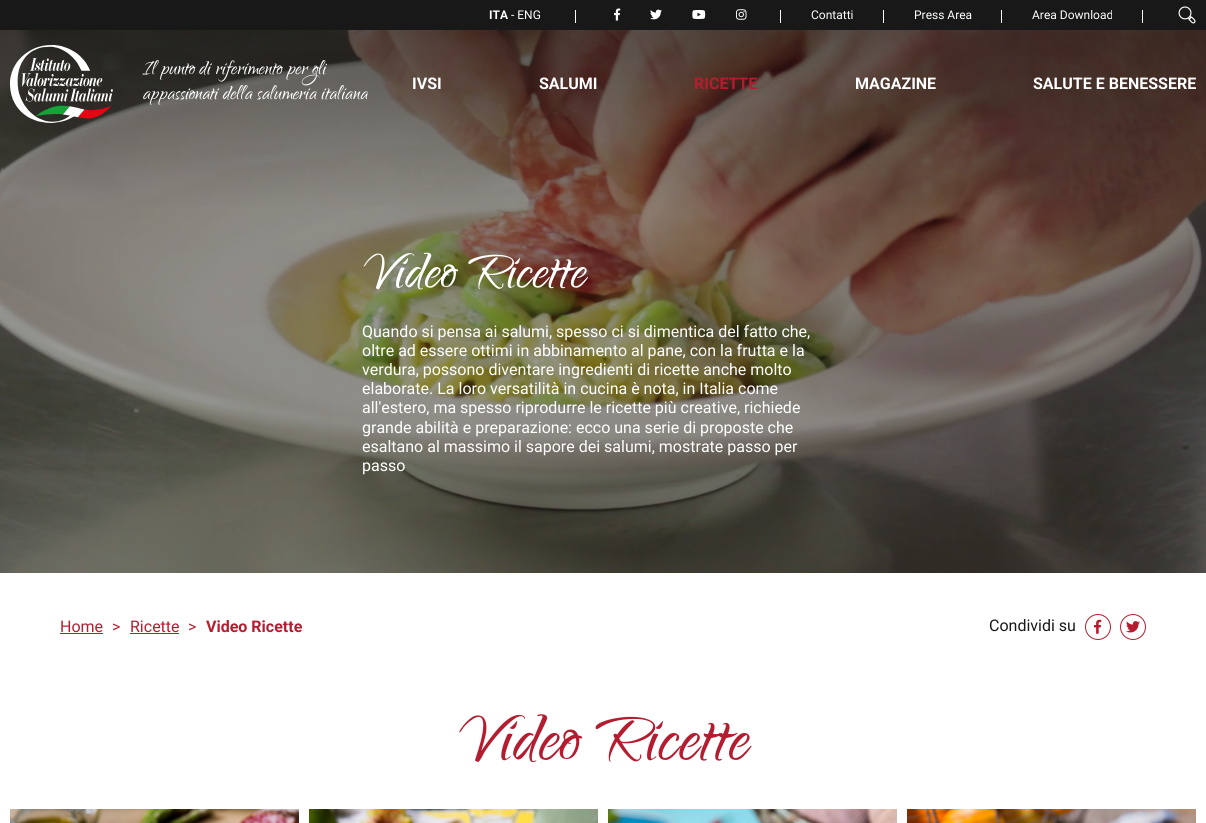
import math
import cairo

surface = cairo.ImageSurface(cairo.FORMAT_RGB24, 1206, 823)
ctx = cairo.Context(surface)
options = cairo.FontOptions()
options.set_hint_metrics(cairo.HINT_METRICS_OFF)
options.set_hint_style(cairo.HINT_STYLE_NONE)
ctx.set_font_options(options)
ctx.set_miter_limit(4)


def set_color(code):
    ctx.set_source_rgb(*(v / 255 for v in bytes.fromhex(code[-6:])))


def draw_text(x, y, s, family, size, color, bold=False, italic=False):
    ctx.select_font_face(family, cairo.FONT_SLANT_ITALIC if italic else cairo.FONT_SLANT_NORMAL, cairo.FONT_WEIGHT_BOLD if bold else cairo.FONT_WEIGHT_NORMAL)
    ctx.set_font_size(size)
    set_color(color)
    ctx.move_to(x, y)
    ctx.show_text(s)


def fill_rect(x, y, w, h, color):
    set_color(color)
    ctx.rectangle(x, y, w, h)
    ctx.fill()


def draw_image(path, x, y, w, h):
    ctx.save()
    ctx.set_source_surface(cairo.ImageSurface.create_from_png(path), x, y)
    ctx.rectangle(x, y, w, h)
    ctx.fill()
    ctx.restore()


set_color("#ffffff")
ctx.paint()
fill_rect(0, 0, 1206, 30, "#181818")
draw_text(489, 19, "ITA", "Roboto", 12, "#ffffff", bold=True)
draw_text(511, 19, "- ENG", "Roboto", 12, "#ffffff")
fill_rect(575, 10, 1, 13, "#ffffff")
draw_image("assets/img1.png", 614, 8, 7, 13)
draw_image("assets/img2.png", 650, 9, 12, 11)
draw_image("assets/img3.png", 692, 10, 14, 9)
draw_image("assets/img4.png", 736, 9, 11, 11)
fill_rect(780, 10, 1, 13, "#ffffff")
draw_text(811, 19, "Contatti", "Roboto", 12, "#ffffff")
fill_rect(883, 10, 1, 13, "#ffffff")
draw_text(914, 19, "Press Area", "Roboto", 12, "#ffffff")
fill_rect(1001, 10, 1, 13, "#ffffff")
draw_text(1032, 19, "Area Download", "Roboto", 12, "#ffffff")
fill_rect(1142, 10, 1, 13, "#ffffff")
draw_image("assets/img5.png", 1178, 6, 18, 18)
draw_image("assets/img6.png", 0, 30, 1206, 543)
draw_image("assets/img7.png", 10, 45, 103, 78)
draw_text(143, 74, "Il punto di riferimento per gli", "Qwigley", 25, "#ffffff")
draw_text(143, 99, "appassionati della salumeria italiana", "Qwigley", 25, "#ffffff")
draw_text(412, 89, "IVSI", "Roboto", 16, "#ffffff", bold=True)
draw_text(539, 89, "SALUMI", "Roboto", 16, "#ffffff", bold=True)
draw_text(694, 89, "RICETTE", "Roboto", 16, "#b41d30", bold=True)
draw_text(855, 89, "MAGAZINE", "Roboto", 16, "#ffffff", bold=True)
draw_text(1033, 89, "SALUTE E BENESSERE", "Roboto", 16, "#ffffff", bold=True)
draw_text(362, 287, "Video Ricette", "Qwigley", 66, "#ffffff")
draw_text(362, 337, "Quando si pensa ai salumi, spesso ci si dimentica del fatto che,", "Roboto", 16, "#ffffff")
draw_text(362, 356, "oltre ad essere ottimi in abbinamento al pane, con la frutta e la", "Roboto", 16, "#ffffff")
draw_text(362, 375, "verdura, possono diventare ingredienti di ricette anche molto", "Roboto", 16, "#ffffff")
draw_text(362, 394, "elaborate. La loro versatilità in cucina è nota, in Italia come", "Roboto", 16, "#ffffff")
draw_text(362, 413, "all'estero, ma spesso riprodurre le ricette più creative, richiede", "Roboto", 16, "#ffffff")
draw_text(362, 433, "grande abilità e preparazione: ecco una serie di proposte che", "Roboto", 16, "#ffffff")
draw_text(362, 452, "esaltano al massimo il sapore dei salumi, mostrate passo per", "Roboto", 16, "#ffffff")
draw_text(362, 471, "passo", "Roboto", 16, "#ffffff")
draw_text(60, 632, "Home", "Roboto", 16, "#b41d30")
fill_rect(60, 633, 43, 1, "#b41d30")
draw_text(112, 632, ">", "Roboto", 16, "#b41d30")
draw_text(130, 632, "Ricette", "Roboto", 16, "#b41d30")
fill_rect(130, 633, 49, 1, "#b41d30")
draw_text(188, 632, ">", "Roboto", 16, "#b41d30")
draw_text(206, 632, "Video Ricette", "Roboto", 16, "#b41d30", bold=True)
draw_text(989, 631, "Condividi su", "Roboto", 16, "#181818")
ctx.new_path()
ctx.arc(1098, 627, 12.5, 0, 2 * math.pi)
set_color("#b41d30")
ctx.set_line_width(1)
ctx.stroke()
draw_image("assets/img8.png", 1094, 619, 8, 15)
ctx.arc(1133, 627, 12.5, 0, 2 * math.pi)
ctx.stroke()
draw_image("assets/img9.png", 1126, 621, 14, 12)
draw_text(457, 759, "Video Ricette", "Qwigley", 86, "#b41d30")
draw_image("assets/img10.png", 10, 809, 289, 14)
draw_image("assets/img11.png", 309, 809, 289, 14)
draw_image("assets/img12.png", 608, 809, 289, 14)
draw_image("assets/img13.png", 907, 809, 289, 14)
surface.write_to_png("output.png")
